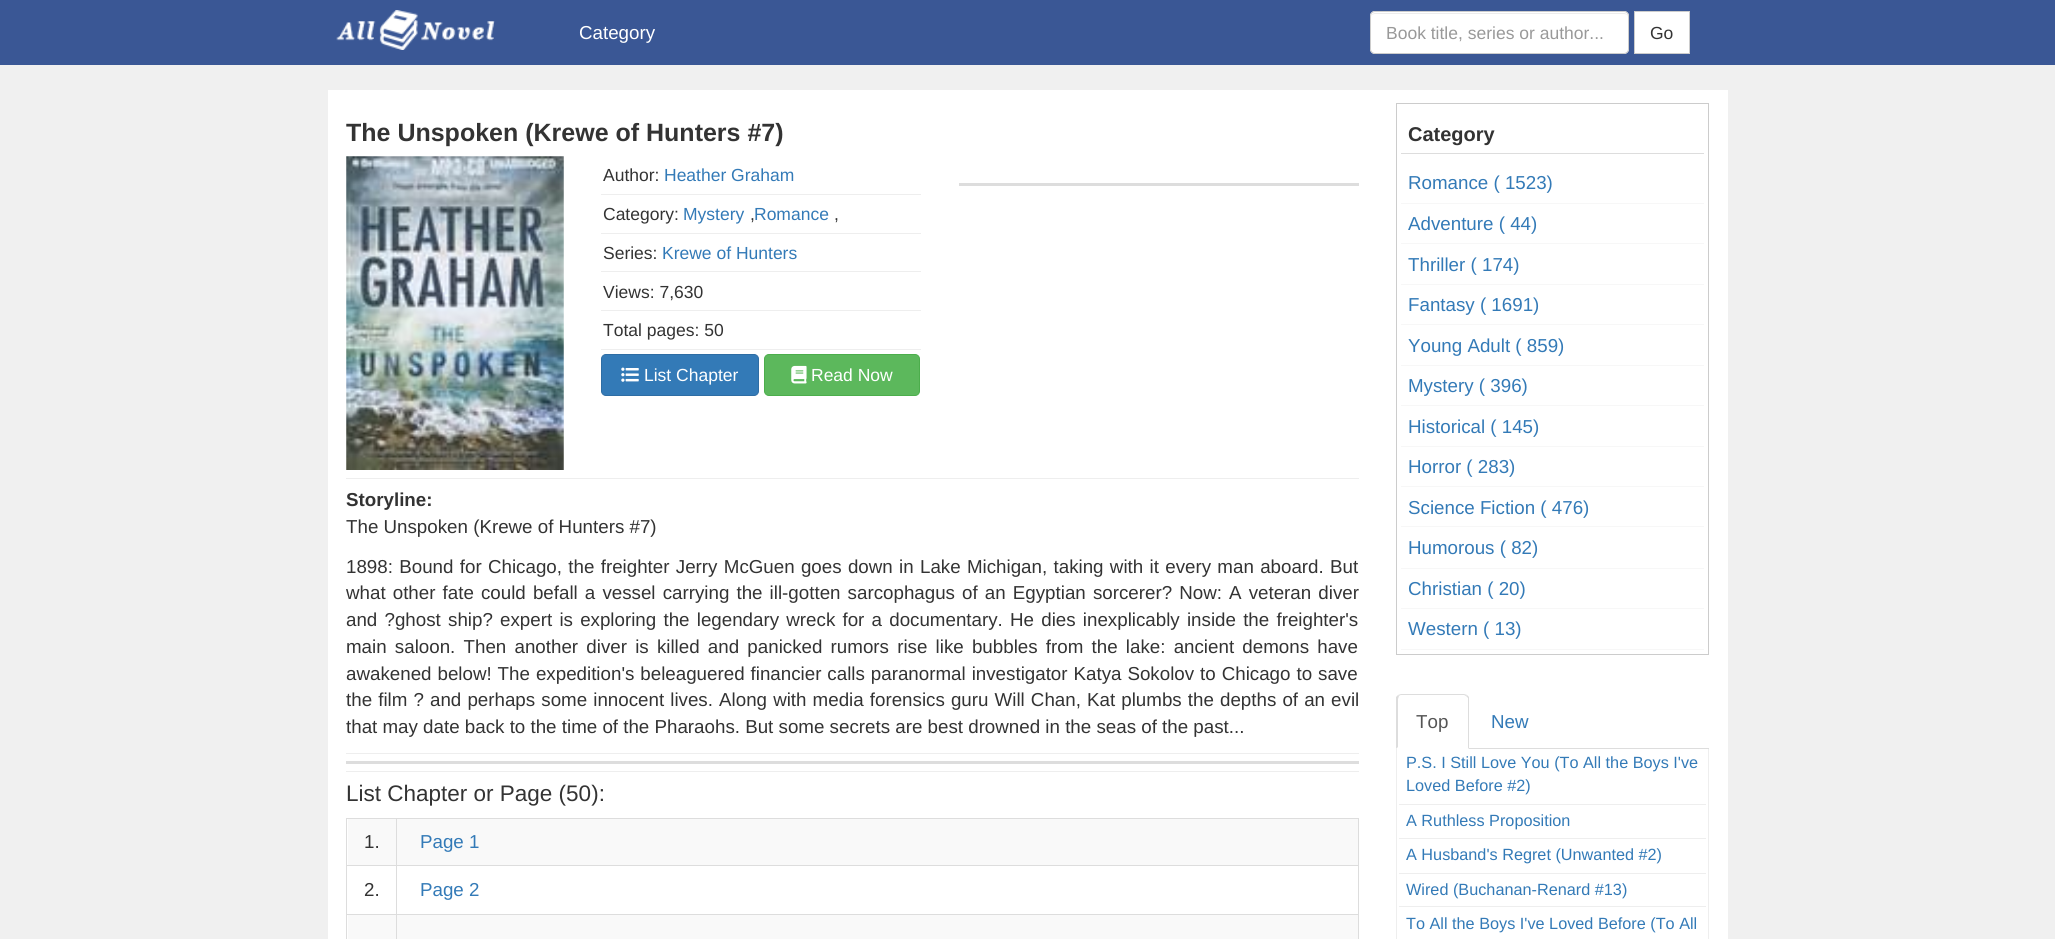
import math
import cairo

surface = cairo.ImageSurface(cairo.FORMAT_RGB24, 2055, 939)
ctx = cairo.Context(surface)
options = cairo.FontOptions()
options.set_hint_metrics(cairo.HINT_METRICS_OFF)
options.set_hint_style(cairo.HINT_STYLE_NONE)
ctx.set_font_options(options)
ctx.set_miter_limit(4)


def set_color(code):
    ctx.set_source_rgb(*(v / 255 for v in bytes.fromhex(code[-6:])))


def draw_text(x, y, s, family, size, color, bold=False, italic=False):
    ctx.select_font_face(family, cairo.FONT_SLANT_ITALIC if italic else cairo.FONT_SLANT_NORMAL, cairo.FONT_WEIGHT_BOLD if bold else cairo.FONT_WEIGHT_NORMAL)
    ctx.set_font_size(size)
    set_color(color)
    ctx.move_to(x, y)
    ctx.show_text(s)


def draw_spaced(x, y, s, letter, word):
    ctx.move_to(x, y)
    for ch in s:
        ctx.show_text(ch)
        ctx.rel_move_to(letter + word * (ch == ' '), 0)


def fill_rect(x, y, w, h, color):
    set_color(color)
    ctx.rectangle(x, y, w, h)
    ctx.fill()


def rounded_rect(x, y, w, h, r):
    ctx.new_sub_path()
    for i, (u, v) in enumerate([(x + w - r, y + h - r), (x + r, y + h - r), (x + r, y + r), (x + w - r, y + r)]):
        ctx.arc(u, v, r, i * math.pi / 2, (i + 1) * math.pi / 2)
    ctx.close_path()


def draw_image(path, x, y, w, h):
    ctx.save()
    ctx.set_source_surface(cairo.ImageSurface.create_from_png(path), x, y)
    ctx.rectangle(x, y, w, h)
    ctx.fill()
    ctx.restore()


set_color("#f0f0f0")
ctx.paint()
fill_rect(0, 0, 2055, 65, "#3a5795")
draw_image("assets/img1.png", 336, 10, 159, 40)
draw_text(579, 39, "Category", "Liberation Sans", 18.75, "#ffffff")
rounded_rect(1370, 11, 259, 43, 5)
ctx.fill()
set_color("#ececec")
ctx.new_path()
ctx.move_to(1375, 14)
ctx.line_to(1624, 14)
ctx.curve_to(1626, 14, 1628, 15, 1628, 18)
ctx.line_to(1628, 17)
ctx.curve_to(1628, 15, 1626, 13, 1624, 13)
ctx.line_to(1375, 13)
ctx.curve_to(1373, 13, 1371, 15, 1371, 17)
ctx.line_to(1371, 18)
ctx.curve_to(1371, 15, 1373, 14, 1375, 14)
ctx.close_path()
ctx.fill()
rounded_rect(1370.5, 11.5, 258, 42, 4.5)
set_color("#cccccc")
ctx.set_line_width(1)
ctx.stroke()
draw_text(1386, 39, "Book title, series or author...", "Liberation Sans", 17.5, "#999999")
set_color("#ffffff")
ctx.rectangle(1634.5, 11.5, 55, 42)
ctx.fill_preserve()
set_color("#cccccc")
ctx.stroke()
draw_text(1650, 39, "Go", "Liberation Sans", 17.5, "#333333")
fill_rect(328, 90, 1400, 849, "#ffffff")
draw_text(346, 141, "The Unspoken (Krewe of Hunters #7)", "Liberation Sans", 25, "#333333", bold=True)
draw_image("assets/img2.png", 346, 156, 218, 314)
fill_rect(601, 194, 320, 1, "#eeeeee")
draw_text(603, 181, "Author:", "Liberation Sans", 17.5, "#333333")
draw_text(664, 181, "Heather Graham", "Liberation Sans", 17.5, "#337ab7")
fill_rect(601, 233, 320, 1, "#eeeeee")
draw_text(603, 220, "Category:", "Liberation Sans", 17.5, "#333333")
draw_text(683, 220, "Mystery", "Liberation Sans", 17.5, "#337ab7")
draw_text(750, 220, ",", "Liberation Sans", 17.5, "#333333")
draw_text(754, 220, "Romance", "Liberation Sans", 17.5, "#337ab7")
draw_text(834, 220, ",", "Liberation Sans", 17.5, "#333333")
fill_rect(601, 271, 320, 1, "#eeeeee")
draw_text(603, 259, "Series:", "Liberation Sans", 17.5, "#333333")
draw_text(662, 259, "Krewe of Hunters", "Liberation Sans", 17.5, "#337ab7")
fill_rect(601, 310, 320, 1, "#eeeeee")
draw_text(603, 298, "Views: 7,630", "Liberation Sans", 17.5, "#333333")
fill_rect(601, 349, 320, 1, "#eeeeee")
draw_text(603, 336, "Total pages: 50", "Liberation Sans", 17.5, "#333333")
set_color("#337ab7")
rounded_rect(601.5, 354.5, 157, 41, 4.5)
ctx.fill_preserve()
set_color("#2e6da4")
ctx.stroke()
draw_image("assets/img3.png", 621, 367, 18, 15)
draw_text(644, 381, "List Chapter", "Liberation Sans", 17.5, "#ffffff")
set_color("#5cb85c")
rounded_rect(764.5, 354.5, 155, 41, 4.5)
ctx.fill_preserve()
set_color("#4cae4c")
ctx.stroke()
draw_image("assets/img4.png", 791, 365, 16, 19)
draw_text(811, 381, "Read Now", "Liberation Sans", 17.5, "#ffffff")
fill_rect(959, 183, 400, 3, "#dddddd")
fill_rect(346, 478, 1013, 1, "#eeeeee")
draw_text(346, 506, "Storyline:", "Liberation Sans", 18.75, "#333333", bold=True)
draw_text(346, 533, "The Unspoken (Krewe of Hunters #7)", "Liberation Sans", 18.75, "#333333")
draw_spaced(346, 573, "1898: Bound for Chicago, the freighter Jerry McGuen goes down in Lake Michigan, taking with it every man aboard. But", 0, 1.1)
draw_spaced(346, 599, "what other fate could befall a vessel carrying the ill-gotten sarcophagus of an Egyptian sorcerer? Now: A veteran diver", 0, 1.9)
draw_spaced(346, 626, "and ?ghost ship? expert is exploring the legendary wreck for a documentary. He dies inexplicably inside the freighter's", 0, 2)
draw_spaced(346, 653, "main saloon. Then another diver is killed and panicked rumors rise like bubbles from the lake: ancient demons have", 0, 3)
draw_spaced(346, 680, "awakened below! The expedition's beleaguered financier calls paranormal investigator Katya Sokolov to Chicago to save", 0, 0.75)
draw_spaced(346, 706, "the film ? and perhaps some innocent lives. Along with media forensics guru Will Chan, Kat plumbs the depths of an evil", 0, 0.9)
draw_text(346, 733, "that may date back to the time of the Pharaohs. But some secrets are best drowned in the seas of the past...", "Liberation Sans", 18.75, "#333333")
fill_rect(346, 753, 1013, 1, "#eeeeee")
fill_rect(346, 761, 1013, 3, "#dddddd")
fill_rect(346, 771, 1013, 1, "#eeeeee")
draw_text(346, 801, "List Chapter or Page (50):", "Liberation Sans", 22.5, "#333333")
fill_rect(346, 818, 1013, 1, "#dddddd")
fill_rect(1358, 818, 1, 121, "#dddddd")
fill_rect(346, 818, 1, 121, "#dddddd")
fill_rect(348, 819, 1010, 46, "#f9f9f9")
draw_text(364, 848, "1.", "Liberation Sans", 18.75, "#333333")
fill_rect(396, 865, 963, 1, "#dddddd")
fill_rect(396, 914, 963, 1, "#dddddd")
fill_rect(348, 915, 1010, 24, "#f9f9f9")
fill_rect(396, 914, 1, 25, "#dddddd")
fill_rect(346, 914, 52, 1, "#dddddd")
fill_rect(396, 865, 1, 50, "#dddddd")
fill_rect(346, 865, 52, 1, "#dddddd")
fill_rect(396, 818, 1, 48, "#dddddd")
draw_text(420, 848, "Page 1", "Liberation Sans", 18.75, "#337ab7")
draw_text(364, 896, "2.", "Liberation Sans", 18.75, "#333333")
draw_text(420, 896, "Page 2", "Liberation Sans", 18.75, "#337ab7")
ctx.rectangle(1396.5, 103.5, 312, 551)
set_color("#cccccc")
ctx.stroke()
fill_rect(1401, 153, 303, 1, "#dddddd")
draw_text(1408, 141, "Category", "Liberation Sans", 20, "#333333", bold=True)
fill_rect(1401, 203, 303, 1, "#f7f7f7")
draw_text(1408, 189, "Romance ( 1523)", "Liberation Sans", 18.75, "#337ab7")
fill_rect(1401, 243, 303, 1, "#f7f7f7")
draw_text(1408, 230, "Adventure ( 44)", "Liberation Sans", 18.75, "#337ab7")
fill_rect(1401, 284, 303, 1, "#f7f7f7")
draw_text(1408, 271, "Thriller ( 174)", "Liberation Sans", 18.75, "#337ab7")
fill_rect(1401, 324, 303, 1, "#f7f7f7")
draw_text(1408, 311, "Fantasy ( 1691)", "Liberation Sans", 18.75, "#337ab7")
fill_rect(1401, 365, 303, 1, "#f7f7f7")
draw_text(1408, 352, "Young Adult ( 859)", "Liberation Sans", 18.75, "#337ab7")
fill_rect(1401, 405, 303, 1, "#f7f7f7")
draw_text(1408, 392, "Mystery ( 396)", "Liberation Sans", 18.75, "#337ab7")
fill_rect(1401, 446, 303, 1, "#f7f7f7")
draw_text(1408, 433, "Historical ( 145)", "Liberation Sans", 18.75, "#337ab7")
fill_rect(1401, 486, 303, 1, "#f7f7f7")
draw_text(1408, 473, "Horror ( 283)", "Liberation Sans", 18.75, "#337ab7")
fill_rect(1401, 526, 303, 1, "#f7f7f7")
draw_text(1408, 514, "Science Fiction ( 476)", "Liberation Sans", 18.75, "#337ab7")
fill_rect(1401, 568, 303, 1, "#f7f7f7")
draw_text(1408, 554, "Humorous ( 82)", "Liberation Sans", 18.75, "#337ab7")
fill_rect(1401, 608, 303, 1, "#f7f7f7")
draw_text(1408, 595, "Christian ( 20)", "Liberation Sans", 18.75, "#337ab7")
fill_rect(1401, 649, 303, 1, "#f7f7f7")
draw_text(1408, 635, "Western ( 13)", "Liberation Sans", 18.75, "#337ab7")
fill_rect(1469, 748, 240, 1, "#dddddd")
ctx.new_path()
ctx.move_to(1401, 694)
ctx.line_to(1398, 695)
ctx.line_to(1399, 696)
ctx.curve_to(1399, 696, 1400, 695, 1401, 695)
ctx.line_to(1464, 695)
ctx.line_to(1466, 696)
ctx.line_to(1467, 695)
ctx.line_to(1464, 694)
ctx.close_path()
ctx.fill()
ctx.new_path()
ctx.move_to(1467, 695)
ctx.line_to(1469, 697)
ctx.line_to(1469, 749)
ctx.line_to(1468, 748)
ctx.line_to(1468, 698)
ctx.line_to(1466, 696)
ctx.close_path()
ctx.fill()
ctx.new_path()
ctx.move_to(1396, 749)
ctx.line_to(1398, 747)
ctx.line_to(1398, 699)
ctx.line_to(1399, 696)
ctx.line_to(1398, 695)
ctx.line_to(1396, 697)
ctx.close_path()
ctx.fill()
draw_text(1416, 728, "Top", "Liberation Sans", 18.75, "#555555")
draw_text(1491, 728, "New", "Liberation Sans", 18.75, "#337ab7")
fill_rect(1708, 749, 1, 190, "#eeeeee")
fill_rect(1396, 749, 1, 190, "#eeeeee")
draw_text(1406, 768, "P.S. I Still Love You (To All the Boys I've", "Liberation Sans", 16.25, "#337ab7")
draw_text(1406, 791, "Loved Before #2)", "Liberation Sans", 16.25, "#337ab7")
fill_rect(1399, 804, 307, 1, "#eeeeee")
draw_text(1406, 826, "A Ruthless Proposition", "Liberation Sans", 16.25, "#337ab7")
fill_rect(1399, 838, 307, 1, "#eeeeee")
draw_text(1406, 860, "A Husband's Regret (Unwanted #2)", "Liberation Sans", 16.25, "#337ab7")
fill_rect(1399, 873, 307, 1, "#eeeeee")
draw_text(1406, 895, "Wired (Buchanan-Renard #13)", "Liberation Sans", 16.25, "#337ab7")
fill_rect(1399, 906, 307, 1, "#eeeeee")
draw_text(1406, 929, "To All the Boys I've Loved Before (To All", "Liberation Sans", 16.25, "#337ab7")
surface.write_to_png("output.png")
